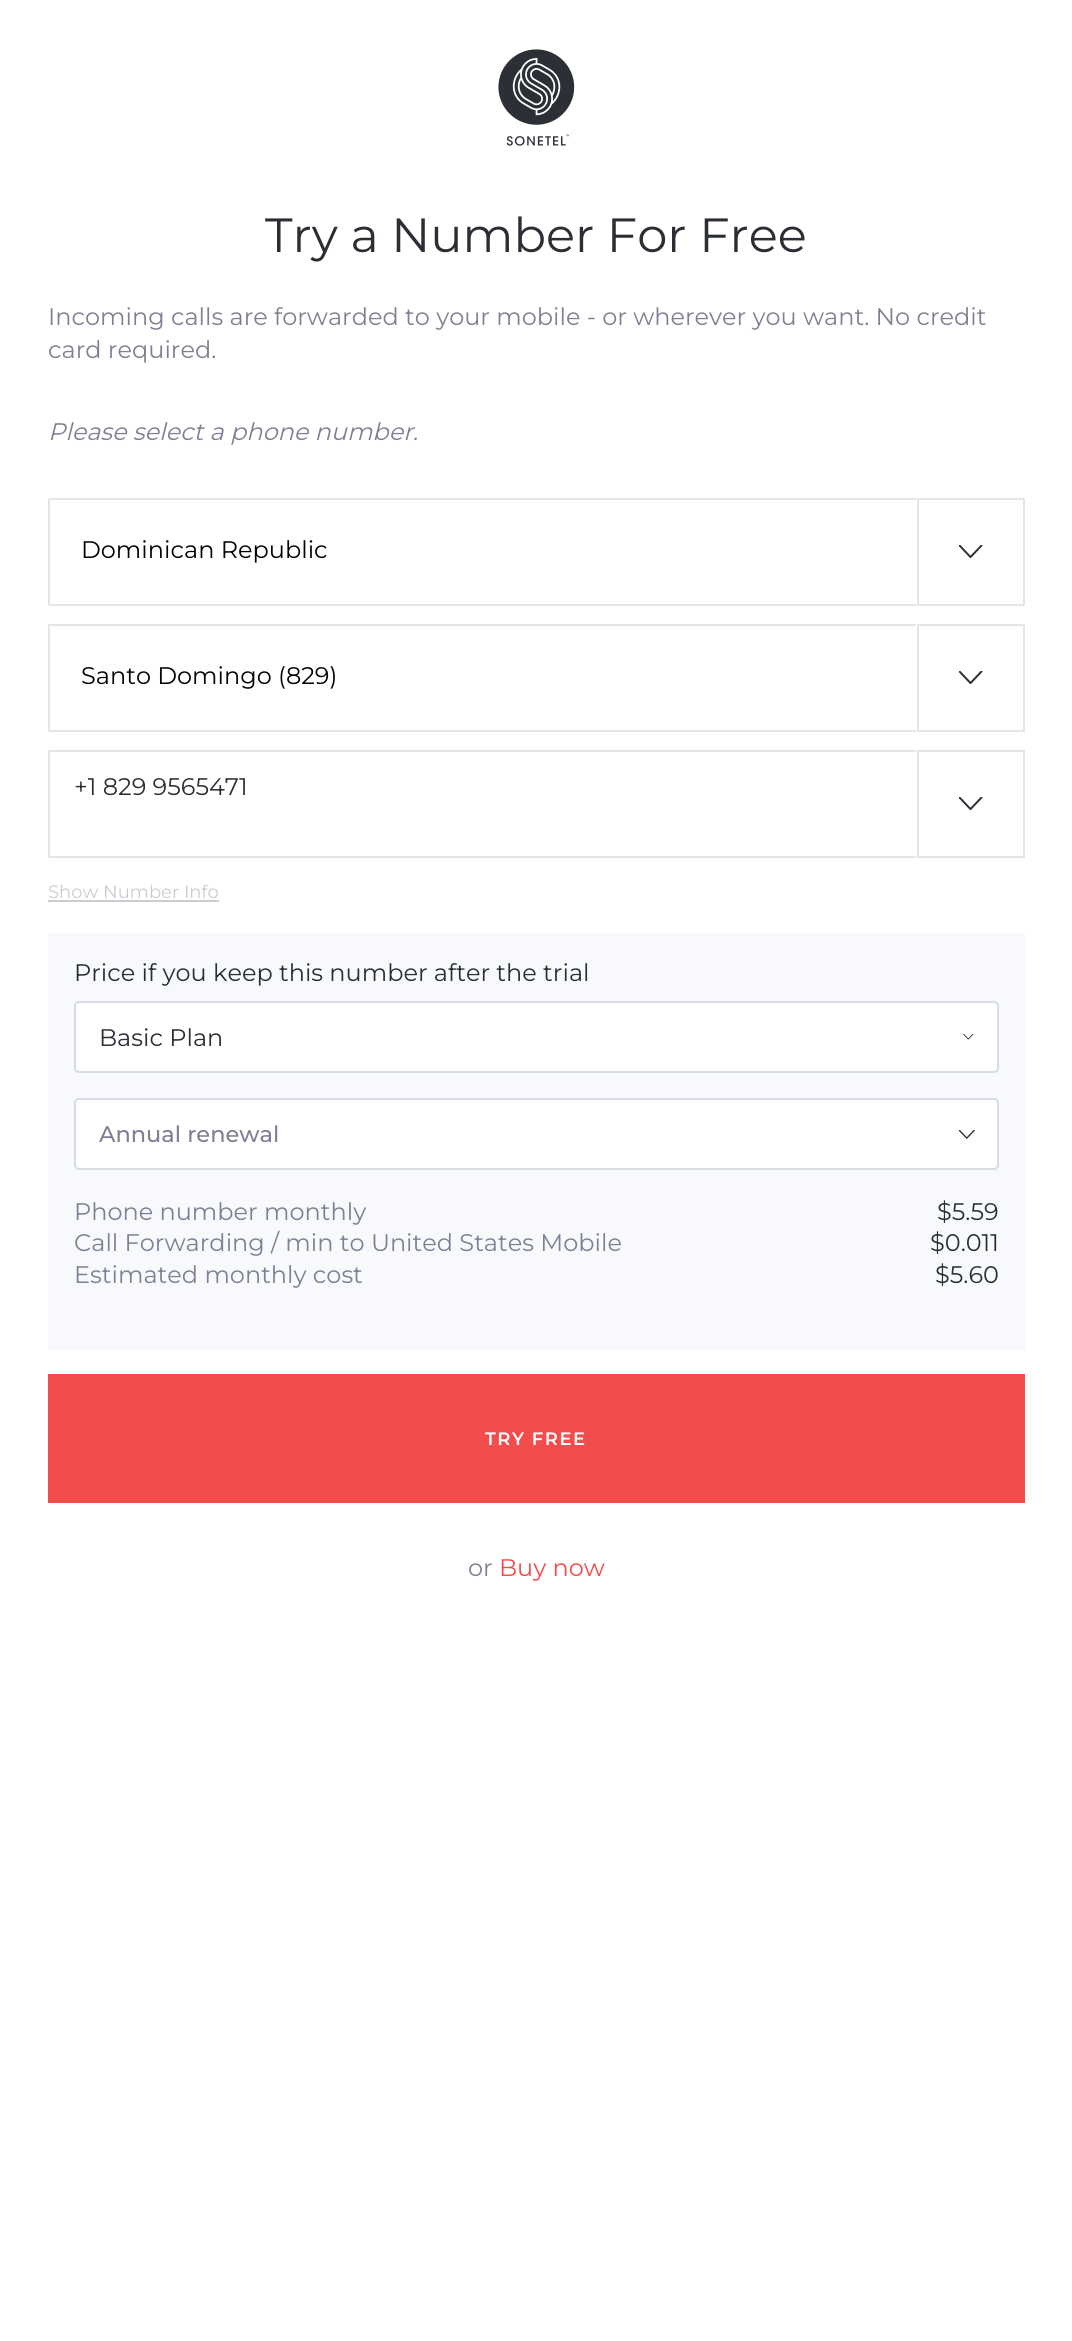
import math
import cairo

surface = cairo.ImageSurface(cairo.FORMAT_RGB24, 1072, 2341)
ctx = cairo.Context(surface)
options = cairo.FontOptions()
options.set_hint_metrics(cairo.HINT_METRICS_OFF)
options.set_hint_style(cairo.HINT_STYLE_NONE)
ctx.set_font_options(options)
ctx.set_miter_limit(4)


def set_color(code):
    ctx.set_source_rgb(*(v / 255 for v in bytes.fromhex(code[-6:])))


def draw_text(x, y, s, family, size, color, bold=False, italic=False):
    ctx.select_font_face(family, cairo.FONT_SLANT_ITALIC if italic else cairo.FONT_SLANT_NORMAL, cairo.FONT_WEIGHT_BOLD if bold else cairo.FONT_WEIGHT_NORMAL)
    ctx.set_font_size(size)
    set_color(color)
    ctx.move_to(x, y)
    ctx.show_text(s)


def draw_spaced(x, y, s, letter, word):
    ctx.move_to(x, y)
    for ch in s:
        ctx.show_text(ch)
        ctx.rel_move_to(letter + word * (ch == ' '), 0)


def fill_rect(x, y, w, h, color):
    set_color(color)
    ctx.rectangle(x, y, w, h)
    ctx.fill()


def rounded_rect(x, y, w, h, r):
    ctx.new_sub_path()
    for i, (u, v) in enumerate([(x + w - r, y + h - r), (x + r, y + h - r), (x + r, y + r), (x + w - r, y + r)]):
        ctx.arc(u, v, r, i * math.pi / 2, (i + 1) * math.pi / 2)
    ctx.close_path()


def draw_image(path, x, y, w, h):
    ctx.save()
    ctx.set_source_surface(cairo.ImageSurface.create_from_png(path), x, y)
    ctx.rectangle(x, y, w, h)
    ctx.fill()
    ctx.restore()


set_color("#ffffff")
ctx.paint()
draw_image("assets/img1.png", 498, 49, 77, 97)
draw_text(265, 252, "Try a Number For Free", "Montserrat", 48, "#2b2f35")
draw_text(48, 325, "Incoming calls are forwarded to your mobile - or wherever you want. No credit", "Montserrat", 24, "#7f7f95")
draw_text(48, 358, "card required.", "Montserrat", 24, "#7f7f95")
draw_text(48, 440, "Please select a phone number.", "Montserrat", 24, "#7f7f95", italic=True)
set_color("#e5e5e5")
ctx.new_path()
ctx.move_to(48, 498)
ctx.line_to(916, 498)
ctx.line_to(916, 500)
ctx.line_to(50, 500)
ctx.close_path()
ctx.fill()
ctx.new_path()
ctx.move_to(916, 606)
ctx.line_to(48, 606)
ctx.line_to(50, 604)
ctx.line_to(916, 604)
ctx.close_path()
ctx.fill()
ctx.set_source_rgba(0.843, 0.843, 0.843, 0.65)
ctx.new_path()
ctx.move_to(48, 606)
ctx.line_to(48, 498)
ctx.line_to(50, 500)
ctx.line_to(50, 604)
ctx.close_path()
ctx.fill()
draw_text(81, 558, "Dominican Republic", "Montserrat", 24, "#030303")
ctx.rectangle(918, 499, 106, 106)
set_color("#e5e5e5")
ctx.stroke()
draw_image("assets/img2.png", 959, 545, 24, 13)
ctx.new_path()
ctx.move_to(48, 624)
ctx.line_to(916, 624)
ctx.line_to(916, 626)
ctx.line_to(50, 626)
ctx.close_path()
ctx.fill()
ctx.new_path()
ctx.move_to(916, 732)
ctx.line_to(48, 732)
ctx.line_to(50, 730)
ctx.line_to(916, 730)
ctx.close_path()
ctx.fill()
ctx.set_source_rgba(0.843, 0.843, 0.843, 0.65)
ctx.new_path()
ctx.move_to(48, 732)
ctx.line_to(48, 624)
ctx.line_to(50, 626)
ctx.line_to(50, 730)
ctx.close_path()
ctx.fill()
draw_text(81, 684, "Santo Domingo (829)", "Montserrat", 24, "#030303")
ctx.rectangle(918, 625, 106, 106)
set_color("#e5e5e5")
ctx.stroke()
draw_image("assets/img2.png", 959, 671, 24, 13)
ctx.new_path()
ctx.move_to(48, 750)
ctx.line_to(916, 750)
ctx.line_to(916, 752)
ctx.line_to(50, 752)
ctx.close_path()
ctx.fill()
ctx.new_path()
ctx.move_to(916, 858)
ctx.line_to(48, 858)
ctx.line_to(50, 856)
ctx.line_to(916, 856)
ctx.close_path()
ctx.fill()
ctx.set_source_rgba(0.843, 0.843, 0.843, 0.65)
ctx.new_path()
ctx.move_to(48, 858)
ctx.line_to(48, 750)
ctx.line_to(50, 752)
ctx.line_to(50, 856)
ctx.close_path()
ctx.fill()
draw_text(74, 795, "+1 829 9565471", "Montserrat", 24, "#2b2f35")
ctx.rectangle(918, 751, 106, 106)
set_color("#e5e5e5")
ctx.stroke()
draw_image("assets/img2.png", 959, 797, 24, 13)
draw_text(48, 898, "Show Number Info", "Montserrat", 18, "#caccd1")
fill_rect(48, 900, 171, 2, "#caccd1")
fill_rect(48, 933, 977, 417, "#f8f9fc")
draw_text(74, 981, "Price if you keep this number after the trial", "Montserrat", 24, "#2b2f35")
set_color("#ffffff")
rounded_rect(75, 1002, 923, 70, 4)
ctx.fill_preserve()
set_color("#d7dce4")
ctx.stroke()
draw_text(99, 1046, "Basic Plan", "Montserrat", 24, "#2b2f35")
draw_image("assets/img3.png", 963, 1034, 11, 6)
set_color("#ffffff")
rounded_rect(75, 1099, 923, 70, 4)
ctx.fill_preserve()
set_color("#d7dce4")
ctx.stroke()
draw_text(99, 1142, "Annual renewal", "Montserrat Medium", 22.5, "#7f7f95")
draw_image("assets/img4.png", 959, 1130, 16, 9)
draw_text(74, 1220, "Phone number monthly", "Montserrat", 24, "#7f7f95")
draw_text(937, 1220, "$5.59", "Montserrat", 24, "#2b2f35")
draw_text(74, 1251, "Call Forwarding / min to United States Mobile", "Montserrat", 24, "#7f7f95")
draw_text(930, 1251, "$0.011", "Montserrat", 24, "#2b2f35")
draw_text(74, 1283, "Estimated monthly cost", "Montserrat", 24, "#7f7f95")
draw_text(935, 1283, "$5.60", "Montserrat", 24, "#2b2f35")
fill_rect(48, 1374, 977, 129, "#f24c4c")
ctx.select_font_face("Montserrat SemiBold")
ctx.set_font_size(18)
set_color("#ffffff")
draw_spaced(485, 1445, "TRY FREE", 1.5, 0)
draw_text(468, 1576, "or", "Montserrat", 24, "#7f7f95")
draw_text(499, 1576, "Buy now", "Montserrat", 24, "#f24c4c")
surface.write_to_png("output.png")
